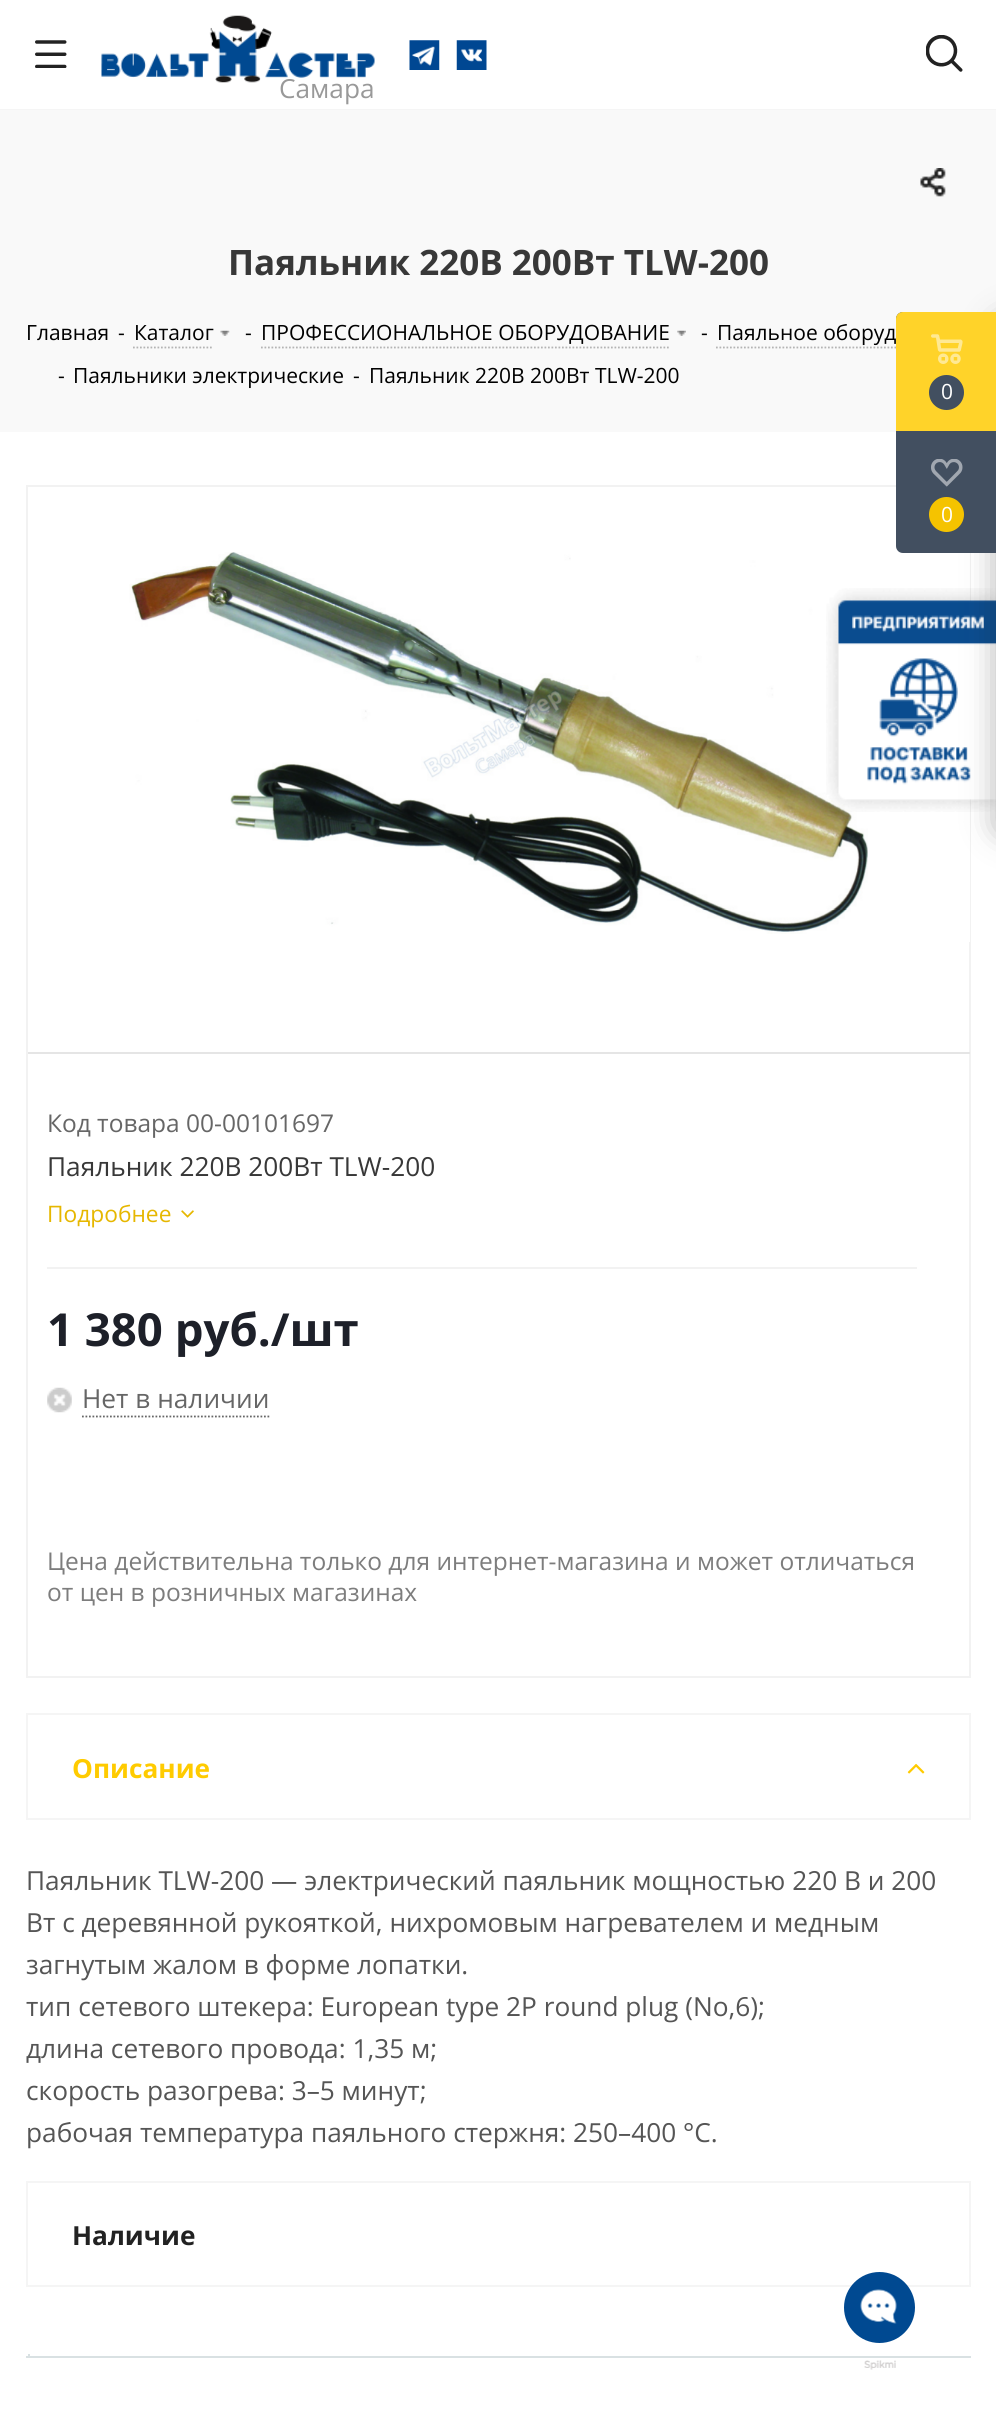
import math
import cairo

surface = cairo.ImageSurface(cairo.FORMAT_RGB24, 996, 2424)
ctx = cairo.Context(surface)
options = cairo.FontOptions()
options.set_hint_metrics(cairo.HINT_METRICS_OFF)
options.set_hint_style(cairo.HINT_STYLE_NONE)
ctx.set_font_options(options)
ctx.set_miter_limit(4)


def set_color(code):
    ctx.set_source_rgb(*(v / 255 for v in bytes.fromhex(code[-6:])))


def draw_text(x, y, s, family, size, color, bold=False, italic=False):
    ctx.select_font_face(family, cairo.FONT_SLANT_ITALIC if italic else cairo.FONT_SLANT_NORMAL, cairo.FONT_WEIGHT_BOLD if bold else cairo.FONT_WEIGHT_NORMAL)
    ctx.set_font_size(size)
    set_color(color)
    ctx.move_to(x, y)
    ctx.show_text(s)


def fill_rect(x, y, w, h, color):
    set_color(color)
    ctx.rectangle(x, y, w, h)
    ctx.fill()


def rounded_rect(x, y, w, h, r):
    ctx.new_sub_path()
    for i, (u, v) in enumerate([(x + w - r, y + h - r), (x + r, y + h - r), (x + r, y + r), (x + w - r, y + r)]):
        ctx.arc(u, v, r, i * math.pi / 2, (i + 1) * math.pi / 2)
    ctx.close_path()


def draw_shadow(x, y, w, h, r, blur, alpha):
    ctx.push_group_with_content(cairo.CONTENT_ALPHA)
    ctx.set_operator(cairo.OPERATOR_SOURCE)
    for i in range(15, -16, -2):
        e = blur * i / 6
        if min(w, h) + 2 * e > 0:
            ctx.set_source_rgba(0, 0, 0, alpha * math.erfc((i - 1) / 8.5) / 2)
            rounded_rect(x - e, y - e, w + 2 * e, h + 2 * e, max(0, min(r + e + blur * .6, min(w, h) / 2 + e)))
            ctx.fill()
    ctx.mask(ctx.pop_group())


def draw_image(path, x, y, w, h):
    ctx.save()
    ctx.set_source_surface(cairo.ImageSurface.create_from_png(path), x, y)
    ctx.rectangle(x, y, w, h)
    ctx.fill()
    ctx.restore()


set_color("#ffffff")
ctx.paint()
fill_rect(0, 109, 996, 1, "#f5f5f5")
draw_image("assets/img1.png", 35, 40, 32, 28)
draw_image("assets/img2.png", 926, 35, 37, 37)
draw_image("assets/img3.png", 409, 40, 31, 30)
draw_image("assets/img4.png", 456, 40, 31, 30)
draw_image("assets/img5.png", 101, 15, 274, 68)
draw_text(279, 98, "Самара", "Open Sans", 26.25, "#999999")
fill_rect(0, 110, 996, 322, "#f9f9f9")
draw_image("assets/img6.png", 920, 168, 26, 29)
draw_text(228, 275, "Паяльник 220В 200Вт TLW-200", "Open Sans", 35, "#383838", bold=True)
draw_text(26, 340, "Главная", "Open Sans", 21, "#000000")
draw_text(118, 340, "-", "Open Sans", 21, "#000000")
draw_text(134, 340, "Каталог", "Open Sans", 21, "#000000")
ctx.new_path()
ctx.move_to(133, 347.5)
ctx.line_to(213.5, 347.5)
set_color("#b4b4b4")
ctx.set_line_width(1.8)
ctx.set_dash([1.75, 1.75])
ctx.stroke()
draw_image("assets/img7.png", 220, 330, 10, 6)
draw_text(245, 340, "-", "Open Sans", 21, "#000000")
draw_text(261, 340, "ПРОФЕССИОНАЛЬНОЕ ОБОРУДОВАНИЕ", "Open Sans", 21, "#000000")
ctx.new_path()
ctx.move_to(261, 347.5)
ctx.line_to(670, 347.5)
set_color("#b4b4b4")
ctx.stroke()
draw_image("assets/img8.png", 677, 330, 9, 6)
draw_text(701, 340, "-", "Open Sans", 21, "#000000")
draw_text(717, 340, "Паяльное оборуд", "Open Sans", 21, "#000000")
ctx.new_path()
ctx.move_to(716, 347.5)
ctx.line_to(971, 347.5)
set_color("#b4b4b4")
ctx.stroke()
draw_text(58, 383, "-", "Open Sans", 21, "#000000")
draw_text(73, 383, "Паяльники электрические", "Open Sans", 21, "#000000")
draw_text(353, 383, "-", "Open Sans", 21, "#000000")
draw_text(369, 383, "Паяльник 220В 200Вт TLW-200", "Open Sans", 21, "#000000")
ctx.rectangle(27, 486, 943, 1191)
set_color("#f2f2f2")
ctx.set_line_width(2)
ctx.set_dash([])
ctx.stroke()
fill_rect(969, 530, 1, 412, "#ffffff")
draw_image("assets/img9.png", 129, 552, 739, 382)
fill_rect(28, 1052, 942, 2, "#e5e5e5")
fill_rect(47, 1267, 870, 2, "#f2f2f2")
draw_text(47, 1132, "Код товара 00-00101697", "Open Sans", 24.5, "#666666")
draw_text(47, 1176, "Паяльник 220В 200Вт TLW-200", "Open Sans", 26.25, "#383838")
draw_text(47, 1222, "Подробнее", "Open Sans", 22.75, "#e6b700")
draw_image("assets/img10.png", 181, 1210, 13, 8)
draw_text(47, 1346, "1 380 руб./шт", "Open Sans", 45.5, "#1d2029", bold=True)
draw_image("assets/img11.png", 47, 1387, 25, 26)
draw_text(82, 1408, "Нет в наличии", "Open Sans", 26.25, "#666666")
ctx.new_path()
ctx.move_to(82, 1416.5)
ctx.line_to(269.5, 1416.5)
ctx.set_line_width(1.8)
ctx.set_dash([1.75, 1.75])
ctx.stroke()
draw_text(47, 1570, "Цена действительна только для интернет-магазина и может отличаться", "Open Sans", 24.5, "#7d7d7d")
draw_text(47, 1601, "от цен в розничных магазинах", "Open Sans", 24.5, "#7d7d7d")
ctx.rectangle(27, 1714, 943, 105)
set_color("#f5f5f5")
ctx.set_line_width(2)
ctx.set_dash([])
ctx.stroke()
draw_text(72, 1778, "Описание", "Open Sans", 26.25, "#ffcb00", bold=True)
draw_image("assets/img12.png", 907, 1763, 18, 11)
draw_text(26, 1890, "Паяльник TLW-200 — электрический паяльник мощностью 220 В и 200", "Open Sans", 26.25, "#555555")
draw_text(26, 1932, "Вт с деревянной рукояткой, нихромовым нагревателем и медным", "Open Sans", 26.25, "#555555")
draw_text(26, 1974, "загнутым жалом в форме лопатки.", "Open Sans", 26.25, "#555555")
draw_text(26, 2016, "тип сетевого штекера: European type 2P round plug (No,6);", "Open Sans", 26.25, "#555555")
draw_text(26, 2058, "длина сетевого провода: 1,35 м;", "Open Sans", 26.25, "#555555")
draw_text(26, 2100, "скорость разогрева: 3–5 минут;", "Open Sans", 26.25, "#555555")
draw_text(26, 2142, "рабочая температура паяльного стержня: 250–400 °С.", "Open Sans", 26.25, "#555555")
ctx.rectangle(27, 2182, 943, 104)
set_color("#f5f5f5")
ctx.stroke()
draw_text(72, 2245, "Наличие", "Open Sans", 26.25, "#222222", bold=True)
fill_rect(26, 2356, 945, 2, "#d9e1e3")
fill_rect(28, 2354, 2, 2, "#d9e1e3")
draw_image("assets/img15.png", 826, 588, 170, 224)
set_color("#2c2c2c")
draw_shadow(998, 322, 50, 509, 4, 16, 0.4)
set_color("#424f60")
ctx.new_path()
ctx.move_to(903, 312)
ctx.line_to(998, 312)
ctx.line_to(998, 553)
ctx.line_to(903, 553)
ctx.curve_to(899, 553, 896, 550, 896, 546)
ctx.line_to(896, 319)
ctx.curve_to(896, 315, 899, 312, 903, 312)
ctx.close_path()
ctx.fill()
set_color("#ffd329")
ctx.new_path()
ctx.move_to(903, 312)
ctx.line_to(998, 312)
ctx.line_to(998, 431)
ctx.line_to(896, 431)
ctx.line_to(896, 319)
ctx.curve_to(896, 315, 899, 312, 903, 312)
ctx.close_path()
ctx.fill()
draw_image("assets/img13.png", 931, 334, 32, 30)
set_color("#424f60")
ctx.arc(946.5, 392.5, 17.5, 0, 2 * math.pi)
ctx.fill()
draw_text(941, 399, "0", "Open Sans", 21, "#ffffff")
draw_image("assets/img14.png", 931, 459, 32, 28)
set_color("#f5c300")
ctx.arc(946.5, 514.5, 17.5, 0, 2 * math.pi)
ctx.fill()
draw_text(941, 522, "0", "Open Sans", 21, "#ffffff")
set_color("#004991")
ctx.new_path()
ctx.arc(879.5, 2307.5, 35.5, 0, 2 * math.pi)
ctx.fill()
draw_image("assets/img16.png", 860, 2289, 37, 35)
draw_image("assets/img17.png", 864, 2360, 32, 10)
surface.write_to_png("output.png")
